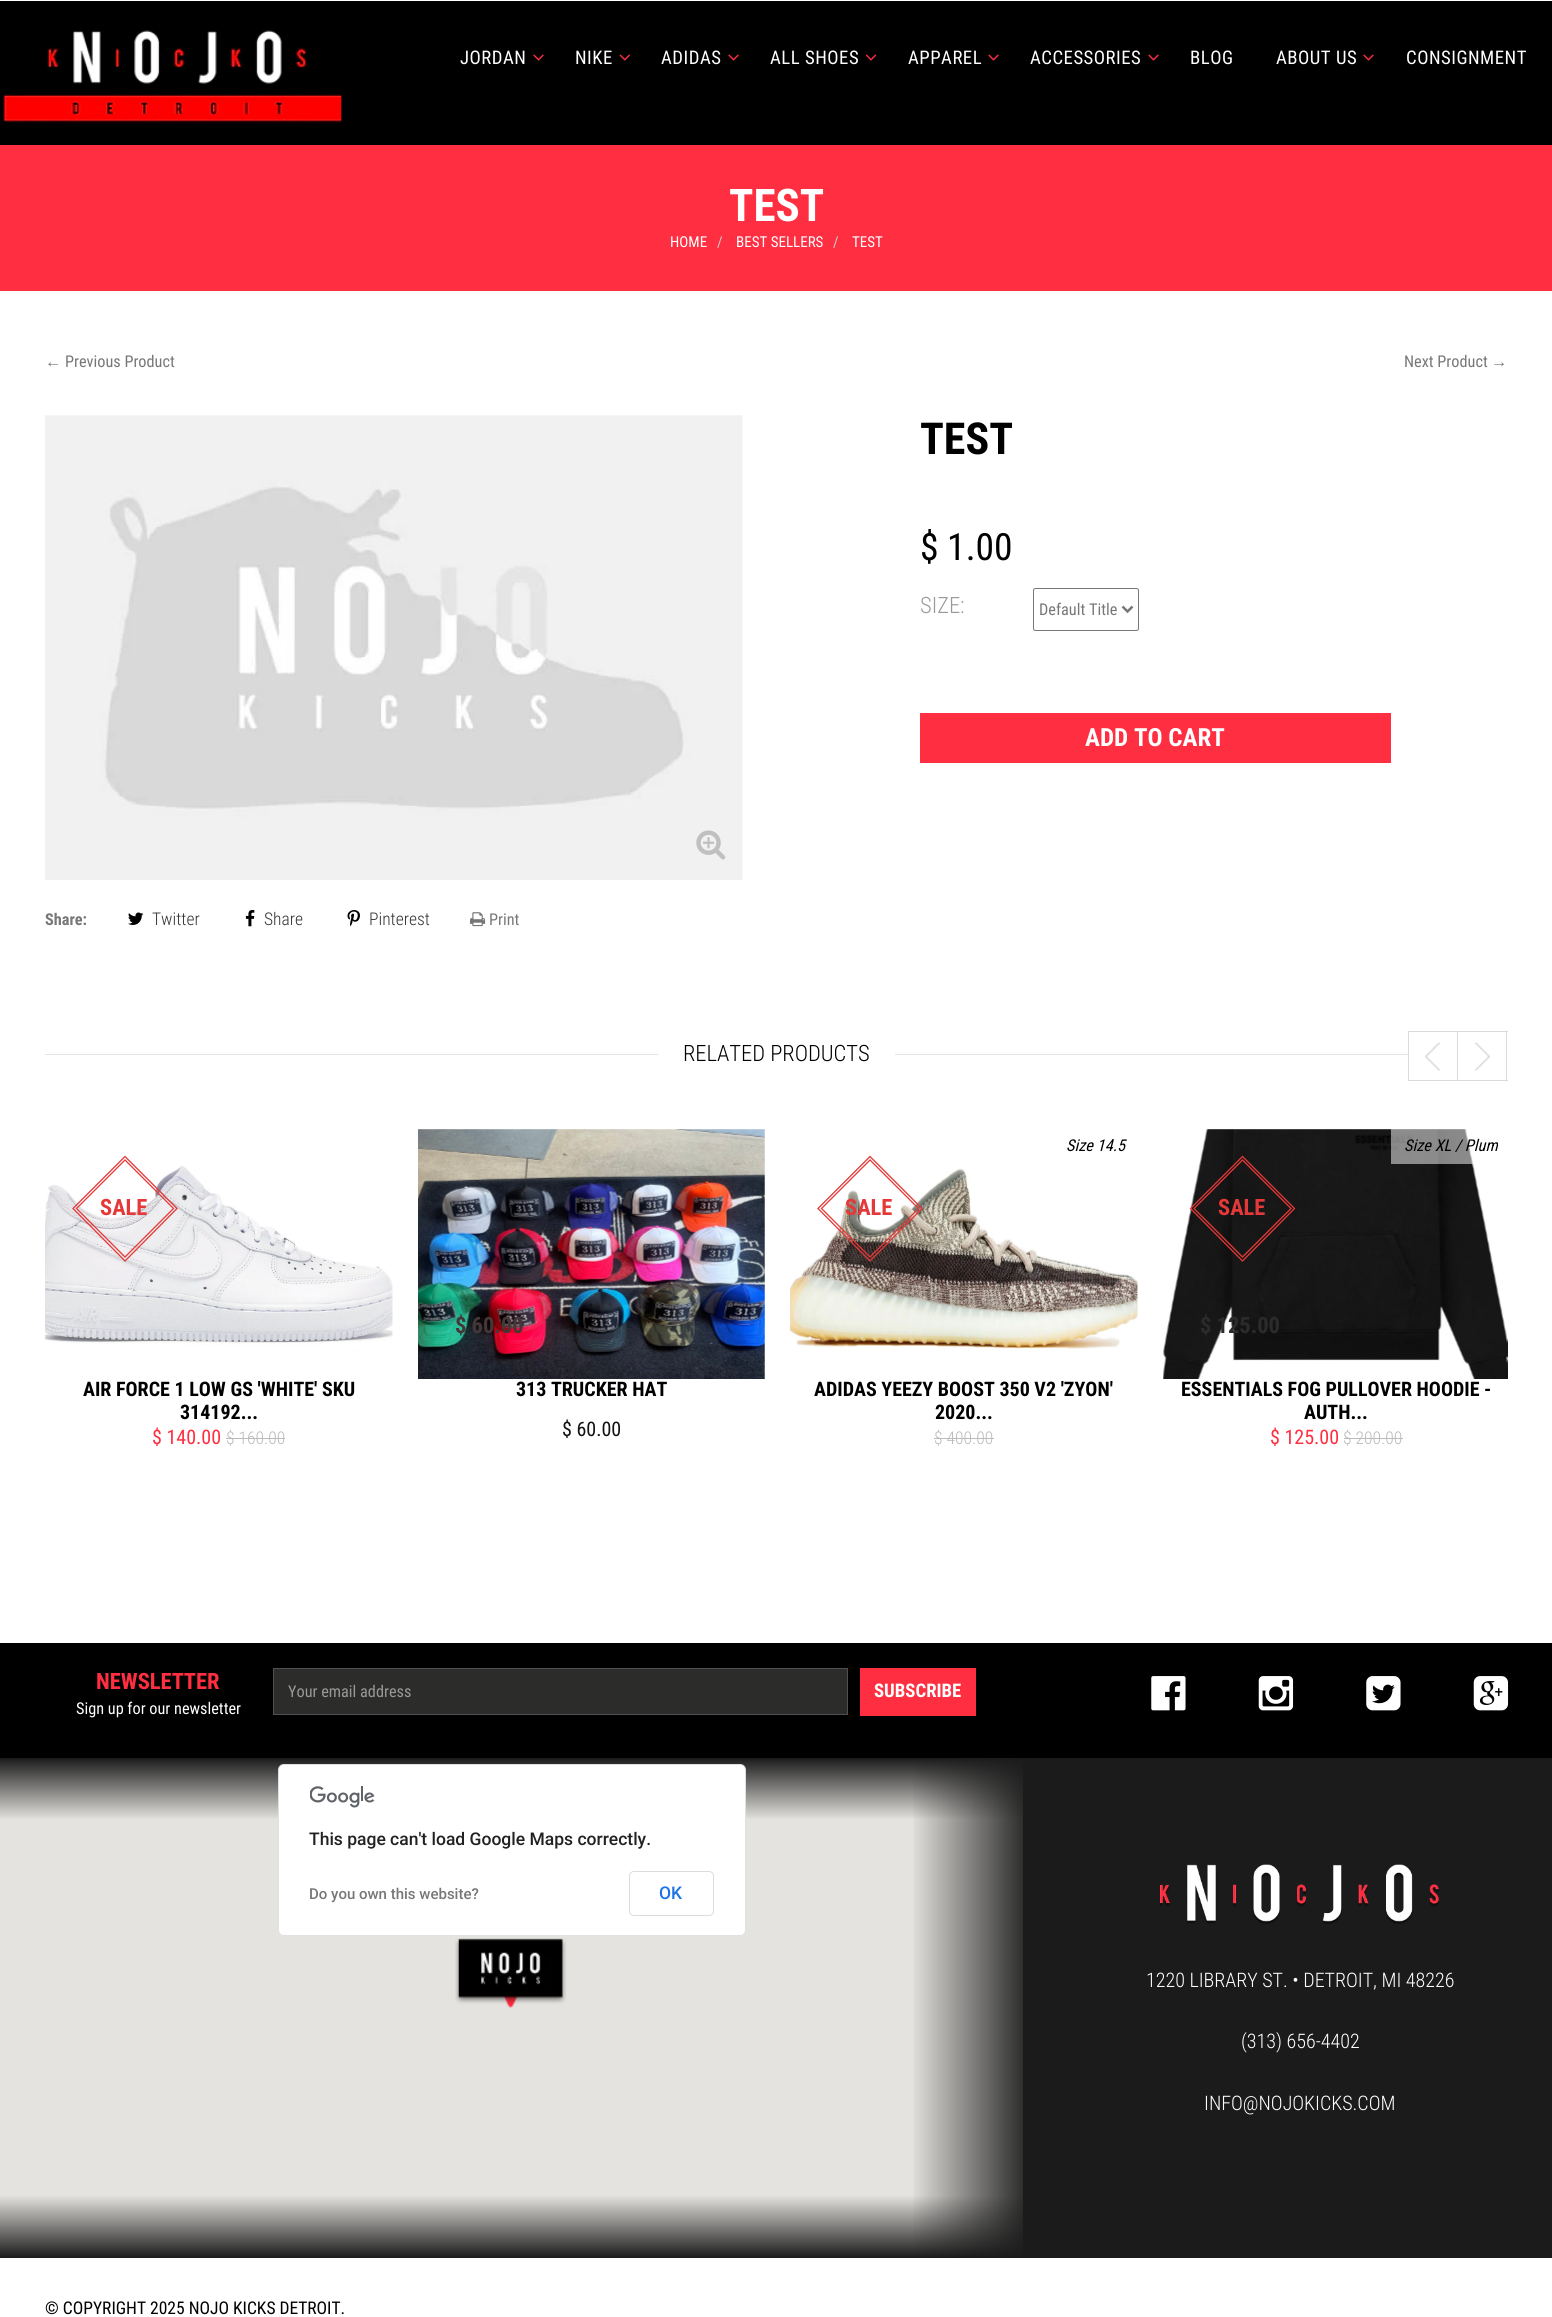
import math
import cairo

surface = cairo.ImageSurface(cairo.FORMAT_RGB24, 1552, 2317)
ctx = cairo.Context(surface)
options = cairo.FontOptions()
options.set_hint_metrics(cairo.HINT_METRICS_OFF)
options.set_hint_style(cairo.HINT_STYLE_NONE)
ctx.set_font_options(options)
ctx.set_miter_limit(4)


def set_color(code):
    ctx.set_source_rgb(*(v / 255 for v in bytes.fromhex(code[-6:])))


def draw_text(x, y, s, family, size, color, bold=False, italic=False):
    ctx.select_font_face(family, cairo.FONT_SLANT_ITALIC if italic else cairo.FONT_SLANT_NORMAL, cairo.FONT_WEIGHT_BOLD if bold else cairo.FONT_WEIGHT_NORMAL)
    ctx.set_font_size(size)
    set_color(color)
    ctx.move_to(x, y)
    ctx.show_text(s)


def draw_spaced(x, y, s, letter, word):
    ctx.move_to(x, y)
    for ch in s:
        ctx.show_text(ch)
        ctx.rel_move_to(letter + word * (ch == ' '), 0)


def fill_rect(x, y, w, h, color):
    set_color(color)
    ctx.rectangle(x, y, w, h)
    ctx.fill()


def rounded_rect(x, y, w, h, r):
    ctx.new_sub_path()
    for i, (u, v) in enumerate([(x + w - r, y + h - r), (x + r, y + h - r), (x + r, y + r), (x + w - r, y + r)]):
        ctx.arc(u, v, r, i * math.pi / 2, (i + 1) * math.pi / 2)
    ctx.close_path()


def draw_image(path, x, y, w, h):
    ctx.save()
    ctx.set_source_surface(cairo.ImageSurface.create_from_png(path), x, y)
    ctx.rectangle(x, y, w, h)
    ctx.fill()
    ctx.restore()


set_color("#ffffff")
ctx.paint()
fill_rect(0, 1, 1552, 144, "#000000")
draw_image("assets/img1.png", 3, 30, 339, 115)
ctx.select_font_face("Roboto Condensed")
ctx.set_font_size(18.75)
set_color("#ffffff")
draw_spaced(460, 64, "JORDAN", 0.5, 0)
draw_image("assets/img2.png", 533, 54, 11, 7)
draw_spaced(575, 64, "NIKE", 0.5, 0)
draw_image("assets/img3.png", 619, 54, 11, 7)
draw_spaced(661, 64, "ADIDAS", 0.5, 0)
draw_image("assets/img2.png", 728, 54, 11, 7)
draw_spaced(770, 64, "ALL SHOES", 0.5, 0)
draw_image("assets/img4.png", 865, 54, 12, 7)
draw_spaced(908, 64, "APPAREL", 0.5, 0)
draw_image("assets/img2.png", 988, 54, 11, 7)
draw_spaced(1030, 64, "ACCESSORIES", 0.5, 0)
draw_image("assets/img2.png", 1148, 54, 11, 7)
draw_spaced(1190, 64, "BLOG", 0.5, 0)
draw_spaced(1276, 64, "ABOUT US", 0.5, 0)
draw_image("assets/img2.png", 1363, 54, 11, 7)
draw_spaced(1406, 64, "CONSIGNMENT", 0.5, 0)
fill_rect(0, 145, 1552, 146, "#ff2e40")
draw_text(729, 221, "TEST", "Roboto Condensed", 45, "#ffffff", bold=True)
draw_text(670, 247, "HOME", "Roboto Condensed", 15, "#ffffff")
draw_text(717, 247, "/", "Roboto Condensed", 15, "#cccccc")
draw_text(736, 247, "BEST SELLERS", "Roboto Condensed", 15, "#ffffff")
draw_text(833, 247, "/", "Roboto Condensed", 15, "#cccccc")
draw_text(852, 247, "TEST", "Roboto Condensed", 15, "#ffffff")
draw_text(45, 367, "←", "Liberation Sans", 16.25, "#777777")
draw_text(65, 367, "Previous Product", "Roboto Condensed", 16.25, "#777777")
draw_text(1404, 367, "Next Product", "Roboto Condensed", 16.25, "#777777")
draw_text(1491, 367, "→", "Liberation Sans", 16.25, "#777777")
draw_text(920, 454, "TEST", "Roboto Condensed", 44, "#000000", bold=True)
draw_text(920, 560, "$ 1.00", "Roboto Condensed", 37.5, "#000000")
draw_text(920, 613, "SIZE:", "Roboto Condensed Light", 22.5, "#999999")
rounded_rect(1033.5, 588.5, 105, 42, 2)
set_color("#767676")
ctx.set_line_width(1)
ctx.stroke()
ctx.new_path()
ctx.move_to(1122.5, 606.5)
ctx.line_to(1127.5, 611.5)
ctx.line_to(1132.5, 606.5)
set_color("#777777")
ctx.set_line_width(2.5)
ctx.stroke()
draw_text(1039, 615, "Default Title", "Roboto Condensed", 16.25, "#777777")
fill_rect(920, 713, 471, 50, "#ff2e40")
draw_text(1085, 746, "ADD TO CART", "Roboto Condensed", 25, "#ffffff", bold=True)
draw_image("assets/img5.png", 45, 415, 698, 465)
draw_image("assets/img6.png", 696, 830, 30, 30)
draw_text(45, 925, "Share:", "Roboto Condensed", 16.25, "#777777", bold=True)
draw_image("assets/img7.png", 128, 912, 16, 13)
draw_text(152, 925, "Twitter", "Roboto Condensed Light", 17.5, "#333333")
draw_image("assets/img8.png", 245, 910, 10, 17)
draw_text(264, 925, "Share", "Roboto Condensed Light", 17.5, "#333333")
draw_image("assets/img9.png", 347, 910, 13, 17)
draw_text(369, 925, "Pinterest", "Roboto Condensed Light", 17.5, "#333333")
draw_image("assets/img10.png", 470, 912, 16, 15)
draw_text(489, 925, "Print", "Roboto Condensed", 16.25, "#777777")
fill_rect(45, 1054, 613, 1, "#e5e5e5")
draw_text(683, 1061, "RELATED PRODUCTS", "Roboto Condensed Light", 22.5, "#000000")
fill_rect(895, 1054, 513, 1, "#e5e5e5")
draw_image("assets/img11.png", 1425, 1042, 15, 29)
ctx.rectangle(1408.5, 1031.5, 49, 49)
set_color("#dadada")
ctx.set_line_width(1)
ctx.stroke()
draw_image("assets/img12.png", 1475, 1042, 15, 29)
fill_rect(1458, 1031, 50, 1, "#dadada")
fill_rect(1506, 1031, 1, 50, "#dadada")
fill_rect(1458, 1080, 50, 1, "#dadada")
draw_image("assets/img13.png", 45, 1166, 348, 186)
ctx.new_path()
ctx.move_to(125, 1156.5)
ctx.line_to(177, 1208.5)
ctx.line_to(125, 1261)
ctx.line_to(73, 1208.5)
ctx.close_path()
set_color("#e53838")
ctx.set_line_width(1.3)
ctx.stroke()
ctx.new_path()
ctx.move_to(125, 1160)
ctx.line_to(173.5, 1208.5)
ctx.line_to(125, 1257)
ctx.line_to(76.5, 1208.5)
ctx.close_path()
ctx.stroke()
draw_text(100, 1215, "SALE", "Roboto Condensed", 22.5, "#e53838", bold=True)
draw_text(83, 1396, "AIR FORCE 1 LOW GS 'WHITE' SKU", "Roboto Condensed", 20, "#000000", bold=True)
draw_text(180, 1419, "314192...", "Roboto Condensed", 20, "#000000", bold=True)
draw_text(152, 1444, "$ 140.00", "Roboto Condensed", 20, "#ff2e40")
draw_text(226, 1444, "$ 160.00", "Roboto Condensed Light", 17.5, "#bbbbbb")
fill_rect(226, 1438, 59, 1, "#bbbbbb")
draw_image("assets/img14.png", 418, 1129, 347, 250)
draw_text(455, 1333, "$ 60.00", "Roboto Condensed", 22.5, "#453638", bold=True)
draw_text(516, 1396, "313 TRUCKER HAT", "Roboto Condensed", 20, "#000000", bold=True)
draw_text(562, 1436, "$ 60.00", "Roboto Condensed", 20, "#111111")
draw_text(1066, 1151, "Size 14.5", "Roboto Condensed", 16.25, "#000000", italic=True)
draw_image("assets/img15.png", 790, 1168, 348, 181)
ctx.new_path()
ctx.move_to(870, 1156.5)
ctx.line_to(922, 1208.5)
ctx.line_to(870, 1261)
ctx.line_to(818, 1208.5)
ctx.close_path()
set_color("#e53838")
ctx.stroke()
ctx.new_path()
ctx.move_to(870, 1160)
ctx.line_to(918.5, 1208.5)
ctx.line_to(870, 1257)
ctx.line_to(821.5, 1208.5)
ctx.close_path()
ctx.stroke()
draw_text(845, 1215, "SALE", "Roboto Condensed", 22.5, "#e53838", bold=True)
draw_text(814, 1396, "ADIDAS YEEZY BOOST 350 V2 'ZYON'", "Roboto Condensed", 20, "#000000", bold=True)
draw_text(935, 1419, "2020...", "Roboto Condensed", 20, "#000000", bold=True)
draw_text(934, 1444, "$ 400.00", "Roboto Condensed Light", 17.5, "#bbbbbb")
fill_rect(934, 1438, 60, 1, "#bbbbbb")
draw_image("assets/img16.png", 1163, 1129, 345, 250)
ctx.set_source_rgba(1, 1, 1, 0.5)
ctx.rectangle(1391, 1129, 83, 35)
ctx.fill()
draw_text(1404, 1151, "Size XL / Plum", "Roboto Condensed", 16.25, "#000000", italic=True)
ctx.new_path()
ctx.move_to(1242.5, 1156.5)
ctx.line_to(1294.5, 1208.5)
ctx.line_to(1242.5, 1261)
ctx.line_to(1190.5, 1208.5)
ctx.close_path()
set_color("#e53838")
ctx.stroke()
ctx.new_path()
ctx.move_to(1242.5, 1160)
ctx.line_to(1291, 1208.5)
ctx.line_to(1242.5, 1257)
ctx.line_to(1194, 1208.5)
ctx.close_path()
ctx.stroke()
draw_text(1218, 1215, "SALE", "Roboto Condensed", 22.5, "#e53838", bold=True)
draw_text(1200, 1333, "$ 125.00", "Roboto Condensed", 22.5, "#2b2b2b", bold=True)
draw_text(1181, 1396, "ESSENTIALS FOG PULLOVER HOODIE -", "Roboto Condensed", 20, "#000000", bold=True)
draw_text(1304, 1419, "AUTH...", "Roboto Condensed", 20, "#000000", bold=True)
draw_text(1270, 1444, "$ 125.00", "Roboto Condensed", 20, "#ff2e40")
draw_text(1343, 1444, "$ 200.00", "Roboto Condensed Light", 17.5, "#bbbbbb")
fill_rect(1344, 1438, 59, 1, "#bbbbbb")
fill_rect(0, 1643, 1552, 115, "#000000")
draw_text(96, 1689, "NEWSLETTER", "Roboto Condensed", 22.5, "#ff2e40", bold=True)
draw_text(76, 1714, "Sign up for our newsletter", "Roboto Condensed", 16.25, "#ffffff")
set_color("#2c2c2b")
ctx.rectangle(273.5, 1668.5, 574, 46)
ctx.fill_preserve()
set_color("#505050")
ctx.set_line_width(1)
ctx.stroke()
draw_text(288, 1697, "Your email address", "Roboto Condensed", 16.25, "#999999")
fill_rect(860, 1668, 116, 48, "#ff2e40")
draw_text(874, 1697, "SUBSCRIBE", "Roboto Condensed", 18.75, "#ffffff", bold=True)
draw_image("assets/img17.png", 1151, 1676, 35, 35)
draw_image("assets/img18.png", 1258, 1676, 36, 35)
draw_image("assets/img19.png", 1366, 1676, 35, 35)
draw_image("assets/img20.png", 1473, 1676, 36, 35)
fill_rect(0, 1758, 1023, 500, "#e5e3df")
gradient = cairo.LinearGradient(910, 2008, 1035, 2008)
gradient.add_color_stop_rgba(0, 0.106, 0.106, 0.106, 0)
gradient.add_color_stop_rgba(1, 0.106, 0.106, 0.106, 1)
ctx.set_source(gradient)
ctx.rectangle(913, 1758, 110, 500)
ctx.fill()
gradient = cairo.LinearGradient(776, 1820, 776, 1758)
gradient.add_color_stop_rgba(0, 0.106, 0.106, 0.106, 0)
gradient.add_color_stop_rgba(1, 0.106, 0.106, 0.106, 1)
ctx.set_source(gradient)
ctx.rectangle(0, 1758, 1023, 61)
ctx.fill()
fill_rect(1023, 1758, 529, 500, "#1b1b1b")
draw_image("assets/img21.png", 455, 1938, 112, 70)
set_color("#ffffff")
rounded_rect(278, 1764, 468, 172, 6)
ctx.fill()
rounded_rect(278.5, 1764.5, 467, 171, 5.5)
ctx.set_source_rgba(0, 0, 0, 0.12)
ctx.stroke()
draw_image("assets/img22.png", 310, 1786, 65, 22)
draw_text(309, 1845, "This page can't load Google Maps correctly.", "Roboto Medium", 17.5, "#212121")
draw_text(309, 1899, "Do you own this website?", "Roboto Medium", 15, "#777777")
rounded_rect(629.5, 1871.5, 84, 44, 4.5)
set_color("#dadce0")
ctx.stroke()
draw_text(659, 1899, "OK", "Roboto Medium", 17.5, "#1a73e8")
draw_image("assets/img23.png", 1160, 1864, 279, 60)
draw_text(1146, 1987, "1220 LIBRARY ST. • DETROIT, MI 48226", "Roboto Condensed Light", 20, "#ffffff")
draw_text(1241, 2048, "(313) 656-4402", "Roboto Condensed Light", 20, "#ffffff")
draw_text(1204, 2110, "INFO@NOJOKICKS.COM", "Roboto Condensed Light", 20, "#ffffff")
gradient = cairo.LinearGradient(776, 2195, 776, 2258)
gradient.add_color_stop_rgba(0, 0.106, 0.106, 0.106, 0)
gradient.add_color_stop_rgba(1, 0.106, 0.106, 0.106, 1)
ctx.set_source(gradient)
ctx.rectangle(0, 2196, 1023, 62)
ctx.fill()
draw_text(45, 2314, "© COPYRIGHT 2025 NOJO KICKS DETROIT.", "Roboto Condensed", 17.5, "#000000")
surface.write_to_png("output.png")
